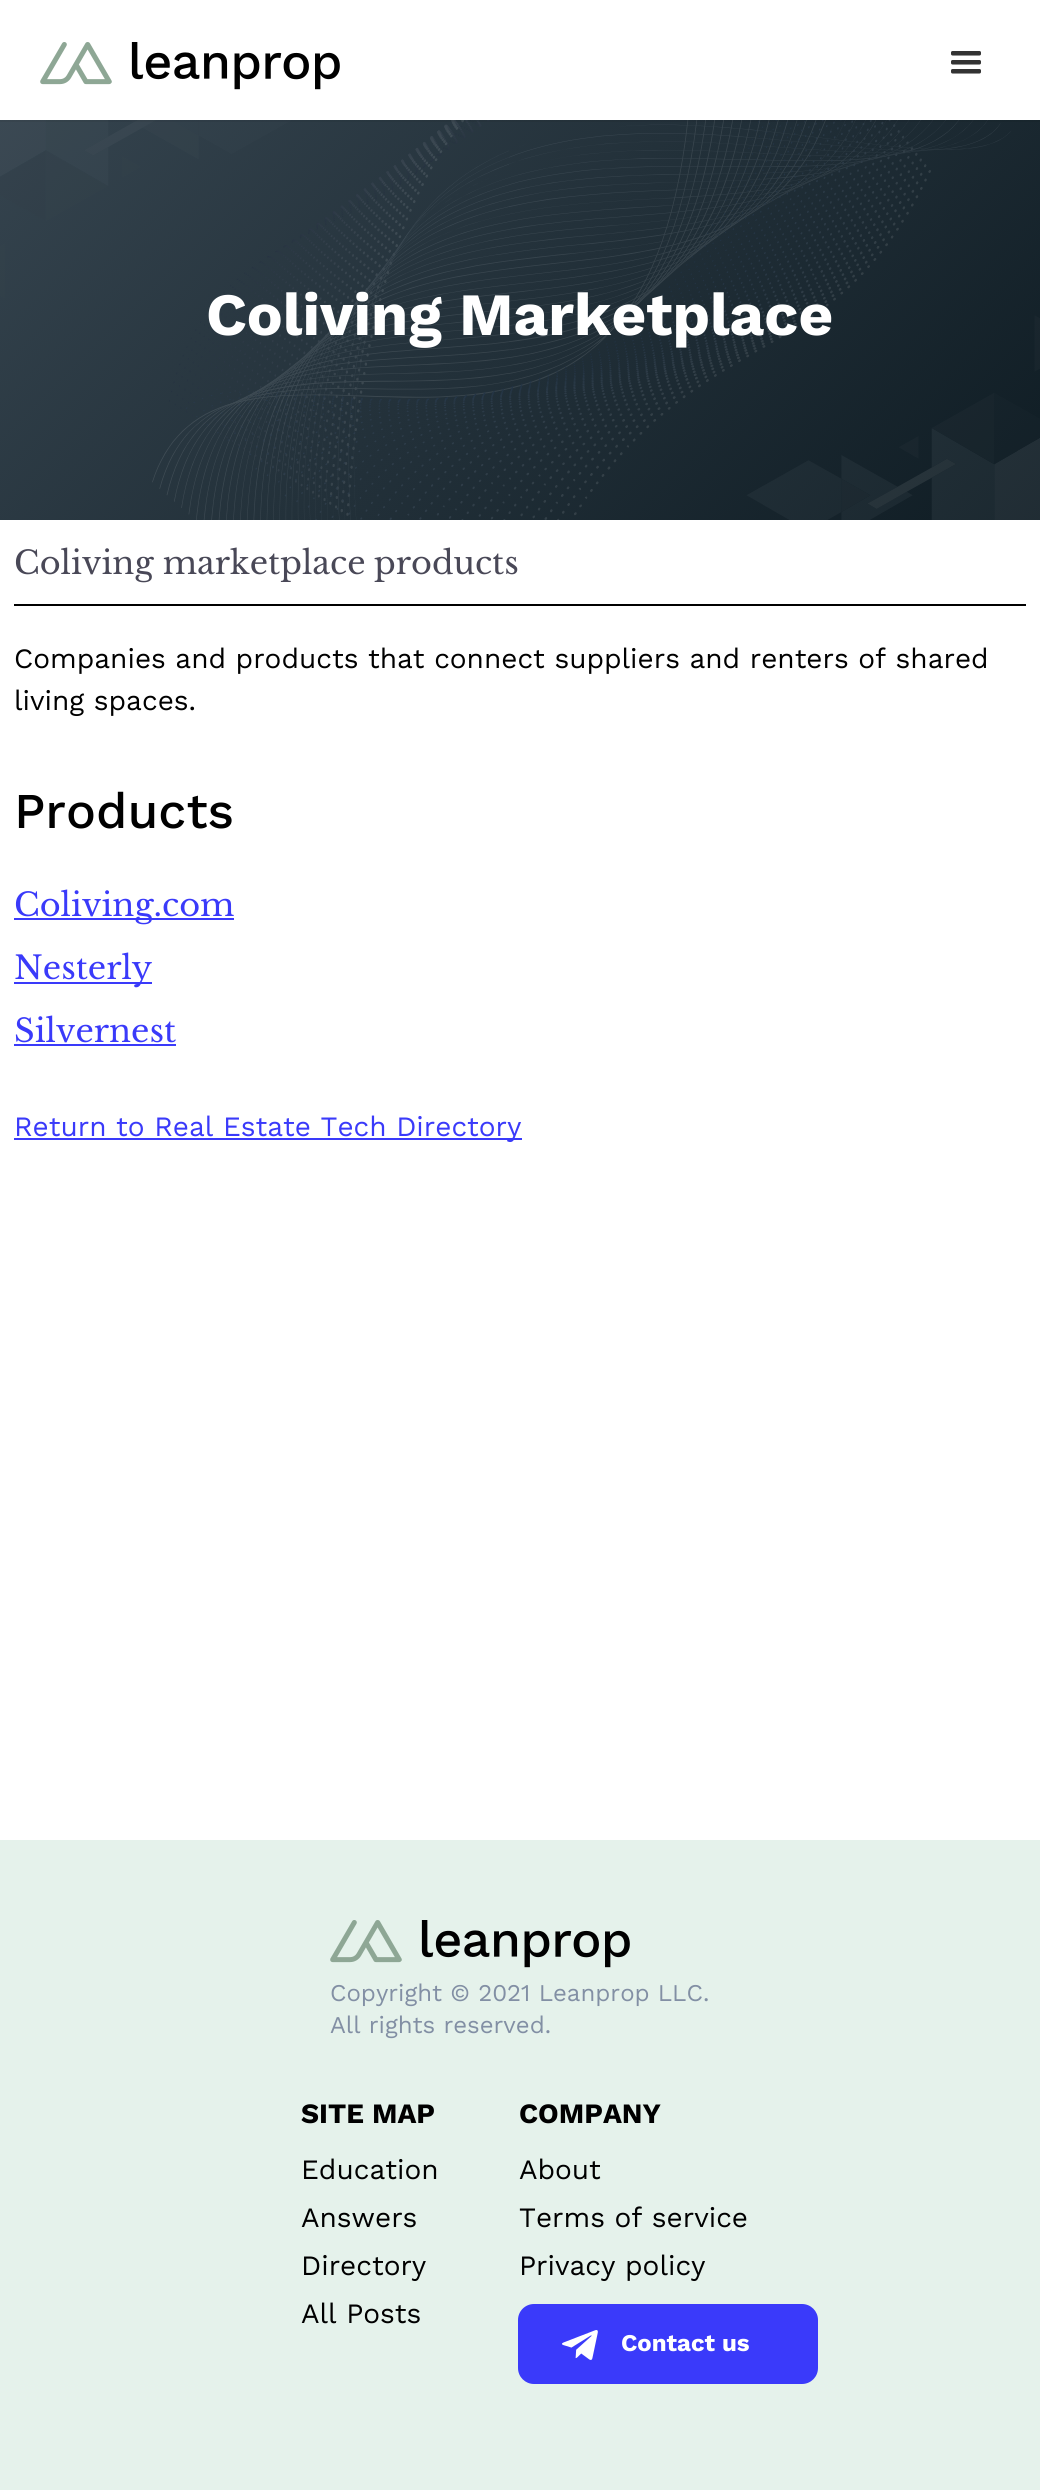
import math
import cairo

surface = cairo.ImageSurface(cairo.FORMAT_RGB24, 1040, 2490)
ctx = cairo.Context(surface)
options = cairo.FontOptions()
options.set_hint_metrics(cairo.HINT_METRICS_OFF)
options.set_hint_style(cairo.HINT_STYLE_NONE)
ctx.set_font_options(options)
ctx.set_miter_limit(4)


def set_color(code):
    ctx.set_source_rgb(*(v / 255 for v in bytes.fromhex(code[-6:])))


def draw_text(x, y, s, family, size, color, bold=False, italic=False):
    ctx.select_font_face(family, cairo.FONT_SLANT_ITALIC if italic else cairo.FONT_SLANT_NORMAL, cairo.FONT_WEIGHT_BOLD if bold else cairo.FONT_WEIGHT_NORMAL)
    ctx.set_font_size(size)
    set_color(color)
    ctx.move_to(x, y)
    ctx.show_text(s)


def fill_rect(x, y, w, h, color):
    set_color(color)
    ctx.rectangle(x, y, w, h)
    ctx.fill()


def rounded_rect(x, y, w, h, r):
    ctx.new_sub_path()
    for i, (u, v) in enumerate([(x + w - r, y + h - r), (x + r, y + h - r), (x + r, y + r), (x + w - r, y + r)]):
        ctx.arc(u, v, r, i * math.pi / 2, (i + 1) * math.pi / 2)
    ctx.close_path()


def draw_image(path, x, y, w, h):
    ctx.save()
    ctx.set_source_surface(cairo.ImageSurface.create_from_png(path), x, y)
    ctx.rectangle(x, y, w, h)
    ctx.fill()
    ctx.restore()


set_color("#ffffff")
ctx.paint()
draw_image("assets/img3.png", 0, 120, 1040, 400)
ctx.set_source_rgba(0, 0, 0, 0.06)
ctx.rectangle(0, 120, 1040, 2)
ctx.fill()
draw_image("assets/img1.png", 40, 42, 300, 48)
draw_image("assets/img2.png", 951, 51, 30, 23)
draw_text(206, 335, "Coliving Marketplace", "Work Sans", 60, "#ffffff", bold=True)
draw_text(14, 574, "Coliving marketplace", "Libre Baskerville", 32, "#494857")
draw_text(374, 574, "products", "Libre Baskerville", 32, "#494857")
fill_rect(14, 604, 1012, 2, "#000000")
draw_text(14, 668, "Companies and products that connect suppliers and renters of shared", "Work Sans", 28, "#000000")
draw_text(14, 710, "living spaces.", "Work Sans", 28, "#000000")
draw_text(14, 828, "Products", "Work Sans Medium", 50, "#000000")
fill_rect(14, 918, 220, 2, "#3a3afa")
draw_text(14, 916, "Coliving.com", "Libre Baskerville", 32, "#3a3afa")
fill_rect(14, 982, 138, 2, "#3a3afa")
draw_text(14, 979, "Nesterly", "Libre Baskerville", 32, "#3a3afa")
draw_text(14, 1042, "Silvernest", "Libre Baskerville", 32, "#3a3afa")
fill_rect(14, 1044, 162, 2, "#3a3afa")
fill_rect(14, 1138, 508, 2, "#3a3afa")
draw_text(14, 1136, "Return to Real Estate Tech Directory", "Work Sans", 28, "#3a3afa")
fill_rect(0, 1840, 1040, 650, "#e5f2eb")
draw_image("assets/img4.png", 330, 1920, 300, 48)
draw_text(330, 2001, "Copyright © 2021 Leanprop LLC.", "Work Sans", 24, "#828fa4")
draw_text(330, 2033, "All rights reserved.", "Work Sans", 24, "#828fa4")
draw_text(301, 2123, "SITE MAP", "Work Sans", 28, "#000000", bold=True)
draw_text(301, 2179, "Education", "Work Sans", 28, "#000000")
draw_text(301, 2227, "Answers", "Work Sans", 28, "#000000")
draw_text(301, 2275, "Directory", "Work Sans", 28, "#000000")
draw_text(301, 2323, "All Posts", "Work Sans", 28, "#000000")
draw_text(519, 2123, "COMPANY", "Work Sans", 28, "#000000", bold=True)
draw_text(519, 2179, "About", "Work Sans", 28, "#000000")
draw_text(519, 2227, "Terms of service", "Work Sans", 28, "#000000")
draw_text(519, 2275, "Privacy policy", "Work Sans", 28, "#000000")
set_color("#3a3afa")
rounded_rect(518, 2304, 300, 80, 16)
ctx.fill()
draw_image("assets/img5.png", 562, 2330, 36, 30)
draw_text(621, 2351, "Contact us", "Work Sans", 24, "#ffffff", bold=True)
surface.write_to_png("output.png")
